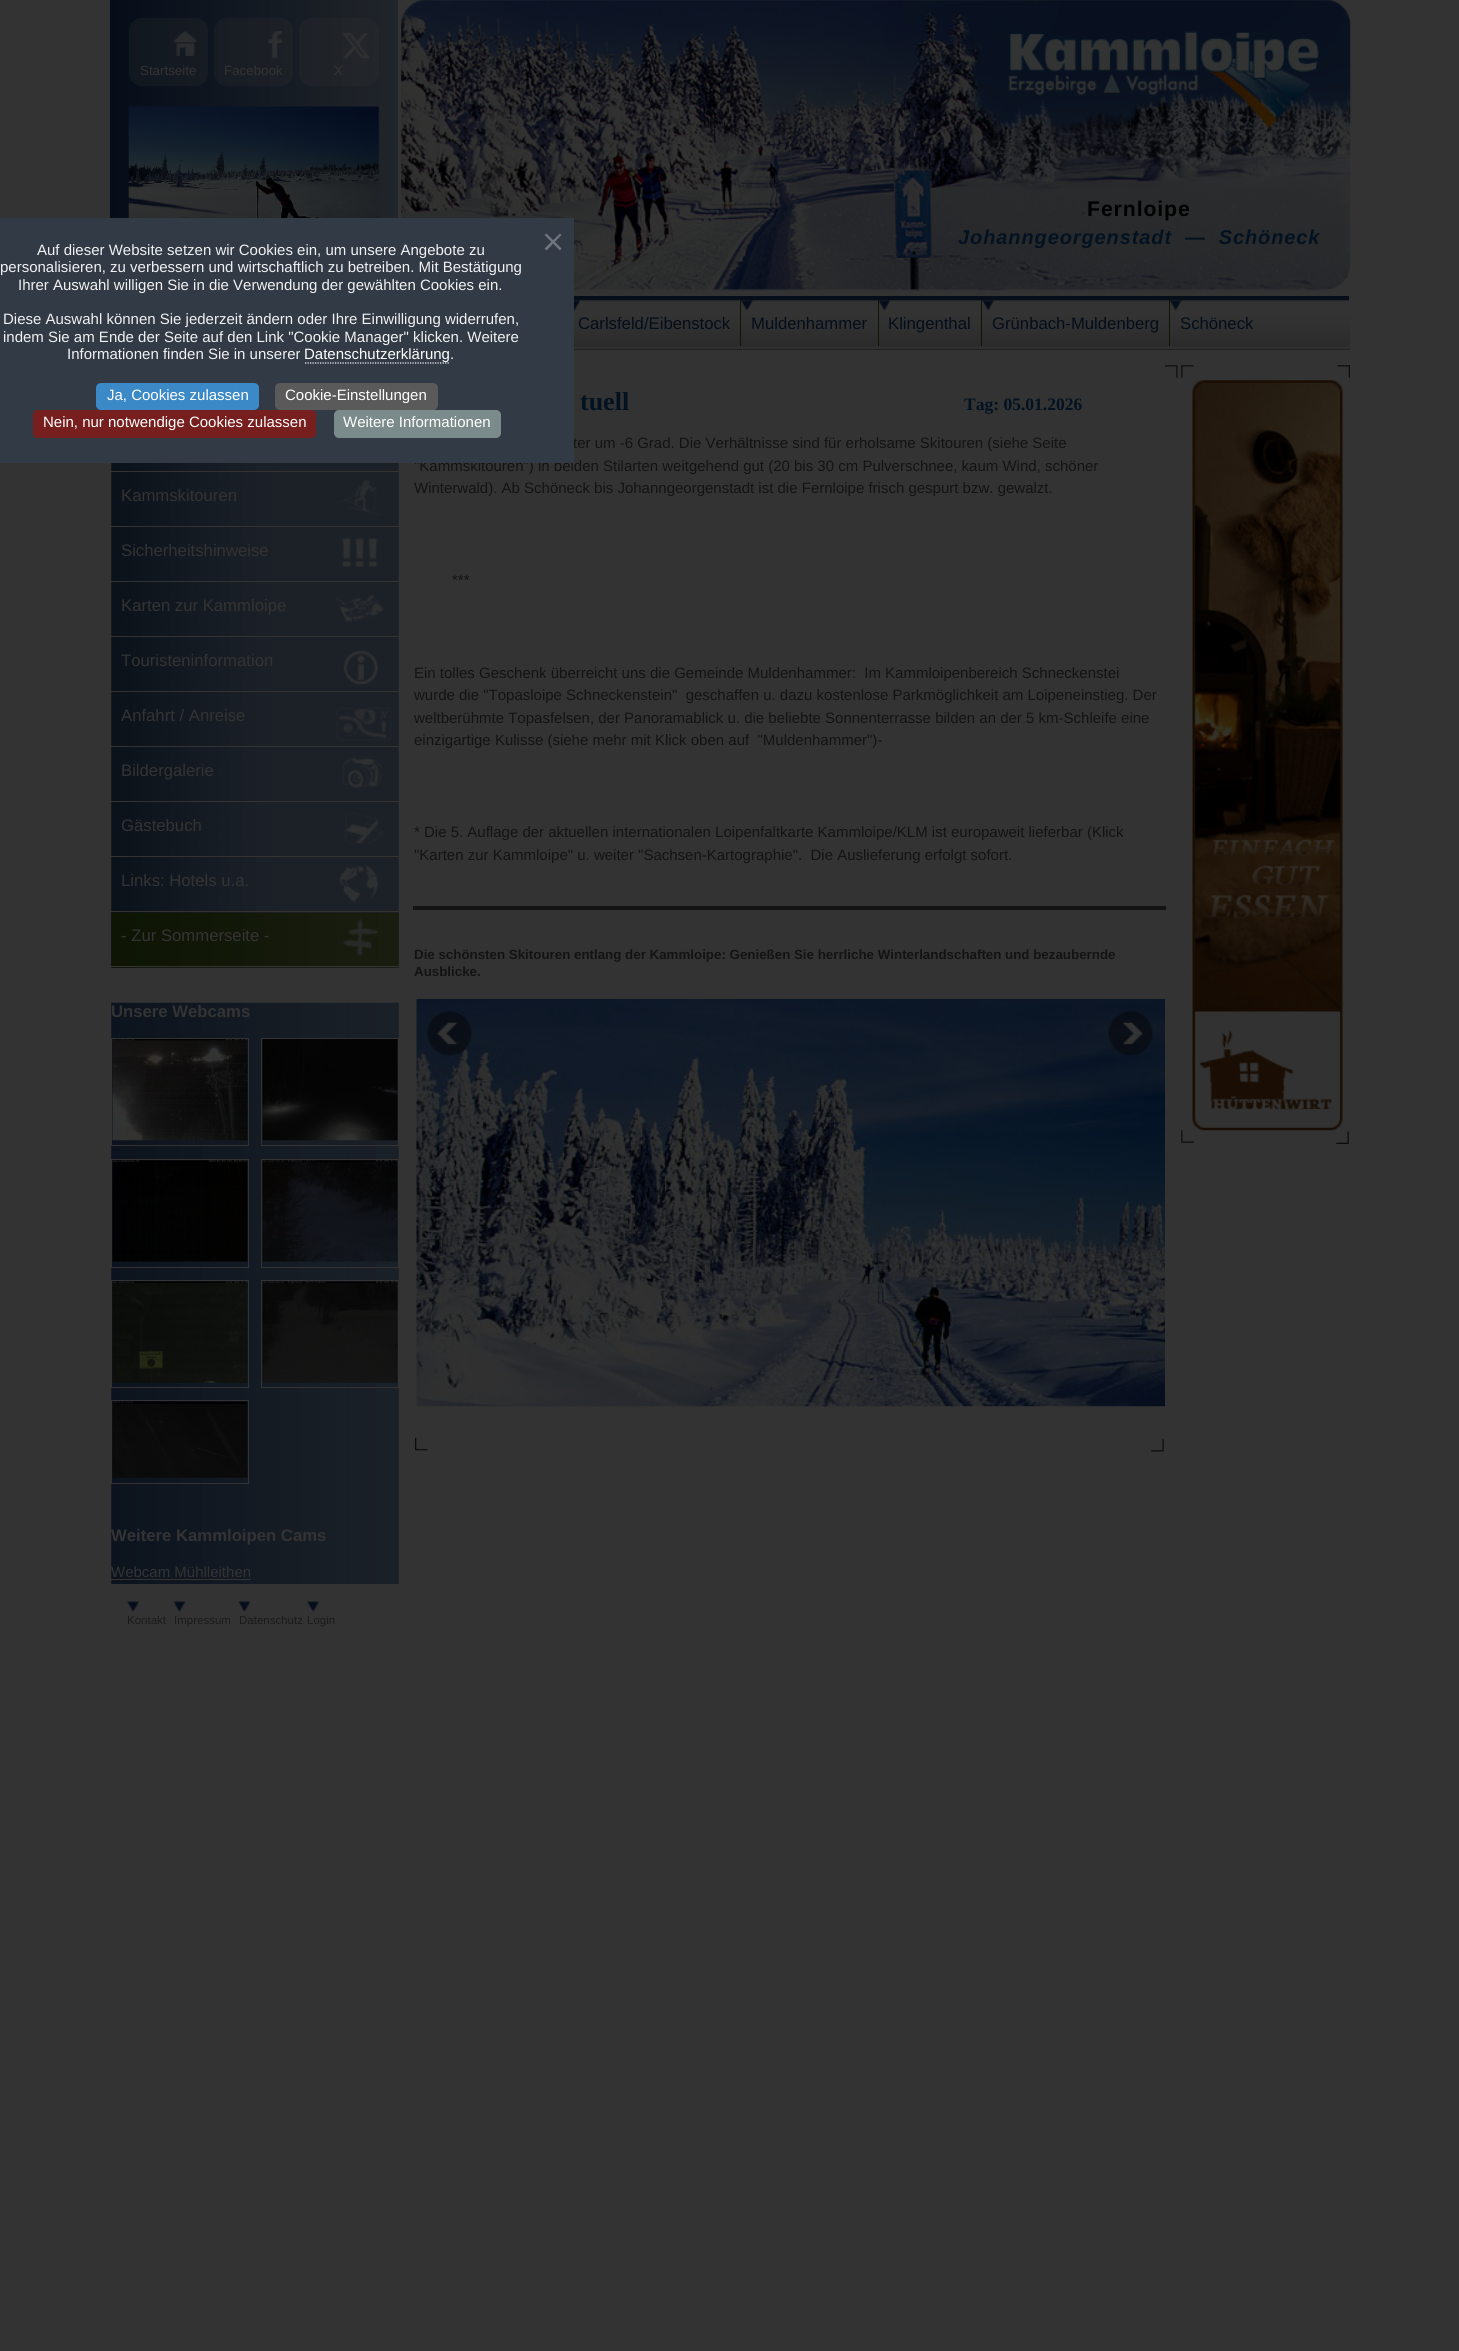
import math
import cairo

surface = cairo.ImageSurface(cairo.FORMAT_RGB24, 1459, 2351)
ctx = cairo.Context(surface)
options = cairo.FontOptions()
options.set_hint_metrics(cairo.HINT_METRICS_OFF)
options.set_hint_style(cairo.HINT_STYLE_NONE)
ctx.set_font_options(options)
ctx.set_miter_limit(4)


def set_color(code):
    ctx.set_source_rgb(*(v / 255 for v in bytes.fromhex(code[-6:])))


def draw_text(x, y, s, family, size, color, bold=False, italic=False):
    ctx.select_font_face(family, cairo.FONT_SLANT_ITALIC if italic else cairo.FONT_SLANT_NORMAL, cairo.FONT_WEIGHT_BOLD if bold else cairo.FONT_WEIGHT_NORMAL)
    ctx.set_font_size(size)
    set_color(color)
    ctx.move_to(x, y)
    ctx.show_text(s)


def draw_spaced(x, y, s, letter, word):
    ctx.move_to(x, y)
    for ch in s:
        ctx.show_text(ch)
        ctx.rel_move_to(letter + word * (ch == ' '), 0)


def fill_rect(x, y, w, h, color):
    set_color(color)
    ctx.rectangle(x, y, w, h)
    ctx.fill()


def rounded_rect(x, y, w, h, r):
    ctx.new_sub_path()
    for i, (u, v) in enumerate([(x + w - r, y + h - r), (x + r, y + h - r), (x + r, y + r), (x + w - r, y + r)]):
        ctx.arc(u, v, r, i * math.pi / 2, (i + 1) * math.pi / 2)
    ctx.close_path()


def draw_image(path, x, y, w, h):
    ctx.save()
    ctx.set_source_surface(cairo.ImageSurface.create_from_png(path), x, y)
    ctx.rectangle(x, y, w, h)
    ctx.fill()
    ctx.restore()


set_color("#333333")
ctx.paint()
gradient = cairo.LinearGradient(110, 146, 398, 146)
gradient.add_color_stop_rgba(0, 0.02, 0.051, 0.098, 1)
gradient.add_color_stop_rgba(1, 0.129, 0.145, 0.165, 1)
ctx.set_source(gradient)
ctx.rectangle(110, 0, 288, 218)
ctx.fill()
ctx.set_source_rgba(0.2, 0.2, 0.2, 0.25)
rounded_rect(129, 18, 79, 68, 13)
ctx.fill()
draw_image("assets/img1.png", 173, 31, 24, 25)
draw_text(140, 75, "Startseite", "Liberation Sans", 13.33, "#333333")
ctx.set_source_rgba(0.2, 0.2, 0.2, 0.25)
rounded_rect(214, 18, 79, 68, 13)
ctx.fill()
draw_image("assets/img2.png", 268, 31, 15, 28)
draw_text(224, 75, "Facebook", "Liberation Sans", 13.33, "#333333")
ctx.set_source_rgba(0.2, 0.2, 0.2, 0.25)
rounded_rect(299, 18, 80, 68, 13)
ctx.fill()
draw_image("assets/img3.png", 342, 33, 28, 26)
draw_text(334, 75, "X", "Liberation Sans", 13.33, "#333333")
draw_image("assets/img4.png", 128, 106, 251, 112)
draw_image("assets/img5.png", 401, 0, 951, 291)
draw_image("assets/img6.png", 1008, 31, 312, 97)
ctx.select_font_face("Liberation Sans", cairo.FONT_SLANT_NORMAL, cairo.FONT_WEIGHT_BOLD)
ctx.set_font_size(21.25)
set_color("#000000")
draw_spaced(1087, 216, "Fernloipe", 0.9, 0)
ctx.select_font_face("Liberation Sans", cairo.FONT_SLANT_ITALIC, cairo.FONT_WEIGHT_BOLD)
ctx.set_font_size(20)
set_color("#031221")
draw_spaced(958, 244, "Johanngeorgenstadt  —  Schöneck", 0.9, 0)
fill_rect(574, 296, 775, 5, "#060e1a")
draw_image("assets/img7.png", 574, 300, 776, 51)
draw_image("assets/img8.png", 574, 300, 6, 11)
draw_text(578, 329, "Carlsfeld/Eibenstock", "Liberation Sans", 16.7, "#040d19")
draw_image("assets/img9.png", 741, 300, 12, 11)
fill_rect(740, 300, 1, 46, "#0e1504")
draw_text(751, 329, "Muldenhammer", "Liberation Sans", 16.7, "#040d19")
draw_image("assets/img10.png", 879, 300, 11, 11)
fill_rect(878, 300, 1, 46, "#0e1504")
draw_text(888, 329, "Klingenthal", "Liberation Sans", 16.7, "#040d19")
draw_image("assets/img11.png", 982, 300, 12, 11)
fill_rect(981, 300, 1, 46, "#0e1504")
draw_text(992, 329, "Grünbach-Muldenberg", "Liberation Sans", 16.7, "#040d19")
draw_image("assets/img12.png", 1170, 300, 12, 11)
fill_rect(1169, 300, 1, 46, "#0e1504")
draw_text(1180, 329, "Schöneck", "Liberation Sans", 16.7, "#040d19")
draw_image("assets/img13.png", 111, 463, 288, 505)
fill_rect(111, 471, 288, 1, "#333333")
draw_image("assets/img14.png", 337, 480, 46, 36)
fill_rect(111, 526, 288, 1, "#333333")
draw_text(121, 501, "Kammskitouren", "Liberation Sans", 16.7, "#333333")
draw_image("assets/img15.png", 342, 537, 36, 30)
fill_rect(111, 581, 288, 1, "#333333")
draw_text(121, 556, "Sicherheitshinweise", "Liberation Sans", 16.7, "#333333")
draw_image("assets/img16.png", 336, 594, 48, 28)
fill_rect(111, 636, 288, 1, "#333333")
draw_text(121, 611, "Karten zur Kammloipe", "Liberation Sans", 16.7, "#333333")
draw_image("assets/img17.png", 343, 650, 35, 36)
fill_rect(111, 691, 288, 1, "#333333")
draw_text(121, 666, "Touristeninformation", "Liberation Sans", 16.7, "#333333")
draw_image("assets/img18.png", 336, 707, 56, 34)
fill_rect(111, 746, 288, 1, "#333333")
draw_text(121, 721, "Anfahrt / Anreise", "Liberation Sans", 16.7, "#333333")
draw_image("assets/img19.png", 342, 757, 40, 31)
fill_rect(111, 801, 288, 1, "#333333")
draw_text(121, 776, "Bildergalerie", "Liberation Sans", 16.7, "#333333")
draw_image("assets/img20.png", 345, 812, 39, 32)
fill_rect(111, 856, 288, 1, "#333333")
draw_text(121, 831, "Gästebuch", "Liberation Sans", 16.7, "#333333")
draw_image("assets/img21.png", 339, 864, 39, 39)
fill_rect(111, 911, 288, 1, "#333333")
draw_text(121, 886, "Links: Hotels u.a.", "Liberation Sans", 16.7, "#333333")
draw_image("assets/img22.png", 111, 912, 288, 56)
draw_image("assets/img23.png", 342, 918, 37, 39)
fill_rect(111, 966, 288, 1, "#333333")
draw_text(121, 941, "- Zur Sommerseite -", "Liberation Sans", 16.7, "#333333")
draw_image("assets/img24.png", 111, 1002, 288, 582)
draw_text(111, 1017, "Unsere Webcams", "Liberation Sans", 16.7, "#333333", bold=True)
ctx.rectangle(111.5, 1038.5, 137, 107)
ctx.set_line_width(1)
ctx.stroke()
draw_image("assets/img25.png", 112, 1039, 136, 102)
ctx.rectangle(261.5, 1038.5, 137, 107)
ctx.stroke()
draw_image("assets/img26.png", 262, 1039, 136, 102)
ctx.rectangle(111.5, 1159.5, 137, 108)
ctx.stroke()
draw_image("assets/img27.png", 112, 1160, 136, 102)
ctx.rectangle(261.5, 1159.5, 137, 108)
ctx.stroke()
draw_image("assets/img28.png", 262, 1160, 136, 102)
ctx.rectangle(111.5, 1280.5, 137, 107)
ctx.stroke()
draw_image("assets/img29.png", 112, 1281, 136, 102)
ctx.rectangle(261.5, 1280.5, 137, 107)
ctx.stroke()
draw_image("assets/img30.png", 262, 1281, 136, 102)
ctx.rectangle(111.5, 1400.5, 137, 83)
ctx.stroke()
draw_image("assets/img31.png", 112, 1401, 136, 77)
draw_text(111, 1541, "Weitere Kammloipen Cams", "Liberation Sans", 16.7, "#333333", bold=True)
draw_text(111, 1577, "Webcam Mühlleithen", "Liberation Sans", 15, "#333333")
fill_rect(111, 1579, 140, 1, "#333333")
draw_image("assets/img32.png", 127, 1601, 12, 11)
draw_image("assets/img33.png", 173, 1601, 12, 11)
draw_image("assets/img33.png", 238, 1601, 12, 11)
draw_image("assets/img32.png", 307, 1601, 12, 11)
draw_text(127, 1624, "Kontakt", "Liberation Sans", 11.5, "#1a1a1a")
draw_text(174, 1624, "Impressum", "Liberation Sans", 11.5, "#1a1a1a")
draw_text(239, 1624, "Datenschutz", "Liberation Sans", 11.5, "#1a1a1a")
draw_text(307, 1624, "Login", "Liberation Sans", 11.5, "#1a1a1a")
draw_image("assets/img34.png", 1164, 365, 14, 13)
draw_text(580, 410, "tuell", "Liberation Serif", 26, "#031221", bold=True)
draw_text(964, 410, "Tag: 05.01.2026", "Liberation Serif", 17.5, "#031221", bold=True)
draw_text(573, 448, "ter um -6 Grad. Die Verhältnisse sind für erholsame Skitouren (siehe Seite", "Liberation Sans", 15, "#131313")
draw_text(414, 471, "\"Kammskitouren\") in beiden Stilarten weitgehend gut (20 bis 30 cm Pulverschnee, kaum Wind, schöner", "Liberation Sans", 15, "#131313")
draw_text(414, 493, "Winterwald). Ab Schöneck bis Johanngeorgenstadt ist die Fernloipe frisch gespurt bzw. gewalzt.", "Liberation Sans", 15, "#131313")
draw_text(452, 585, "***", "Liberation Sans", 15, "#131313")
draw_text(414, 678, "Ein tolles Geschenk überreicht uns die Gemeinde Muldenhammer:  Im Kammloipenbereich Schneckenstei", "Liberation Sans", 15, "#131313")
draw_text(414, 700, "wurde die \"Topasloipe Schneckenstein\"  geschaffen u. dazu kostenlose Parkmöglichkeit am Loipeneinstieg. Der", "Liberation Sans", 15, "#131313")
draw_text(414, 723, "weltberühmte Topasfelsen, der Panoramablick u. die beliebte Sonnenterrasse bilden an der 5 km-Schleife eine", "Liberation Sans", 15, "#131313")
draw_text(414, 745, "einzigartige Kulisse (siehe mehr mit Klick oben auf  \"Muldenhammer\")-", "Liberation Sans", 15, "#131313")
draw_text(414, 837, "* Die 5. Auflage der aktuellen internationalen Loipenfaltkarte Kammloipe/KLM ist europaweit lieferbar (Klick", "Liberation Sans", 15, "#131313")
draw_text(414, 860, "\"Karten zur Kammloipe\" u. weiter \"Sachsen-Kartographie\".  Die Auslieferung erfolgt sofort.", "Liberation Sans", 15, "#131313")
fill_rect(413, 906, 753, 4, "#131313")
draw_text(414, 959, "Die schönsten Skitouren entlang der Kammloipe: Genießen Sie herrliche Winterlandschaften und bezaubernde", "Liberation Sans", 13.33, "#131313", bold=True)
draw_text(414, 976, "Ausblicke.", "Liberation Sans", 13.33, "#131313", bold=True)
draw_image("assets/img35.png", 416, 999, 749, 408)
draw_image("assets/img36.png", 427, 1011, 45, 45)
draw_image("assets/img37.png", 1108, 1011, 45, 45)
draw_image("assets/img38.png", 415, 1437, 14, 14)
draw_image("assets/img39.png", 1151, 1438, 13, 14)
draw_image("assets/img40.png", 1181, 365, 13, 14)
draw_image("assets/img41.png", 1336, 365, 14, 13)
draw_image("assets/img43.png", 1181, 1130, 14, 13)
draw_image("assets/img44.png", 1336, 1130, 13, 14)
draw_image("assets/img42.png", 1192, 380, 151, 751)
fill_rect(0, 218, 574, 245, "#323a45")
set_color("#70757d")
ctx.new_path()
ctx.move_to(560, 233.5)
ctx.line_to(561.5, 235)
ctx.line_to(546.5, 250.5)
ctx.line_to(544.5, 248.5)
ctx.close_path()
ctx.fill()
ctx.new_path()
ctx.move_to(544.5, 235)
ctx.line_to(546.5, 233.5)
ctx.line_to(561.5, 248.5)
ctx.line_to(560, 250.5)
ctx.close_path()
ctx.fill()
draw_text(37, 255, "Auf dieser Website setzen wir Cookies ein, um unsere Angebote zu", "Liberation Sans", 15, "#f1f1f3")
draw_text(0, 272, "personalisieren, zu verbessern und wirtschaftlich zu betreiben. Mit Bestätigung", "Liberation Sans", 15, "#f1f1f3")
draw_text(18, 290, "Ihrer Auswahl willigen Sie in die Verwendung der gewählten Cookies ein.", "Liberation Sans", 15, "#f1f1f3")
draw_text(3, 324, "Diese Auswahl können Sie jederzeit ändern oder Ihre Einwilligung widerrufen,", "Liberation Sans", 15, "#f1f1f3")
draw_text(3, 342, "indem Sie am Ende der Seite auf den Link \"Cookie Manager\" klicken. Weitere", "Liberation Sans", 15, "#f1f1f3")
draw_text(67, 359, "Informationen finden Sie in unserer", "Liberation Sans", 15, "#f1f1f3")
ctx.new_path()
ctx.move_to(305, 363)
ctx.line_to(450, 363)
set_color("#ffffff")
ctx.set_line_width(1.2)
ctx.set_dash([1.25, 1.25])
ctx.stroke()
draw_text(304, 359, "Datenschutzerklärung", "Liberation Sans", 15, "#ffffff")
draw_text(450, 359, ".", "Liberation Sans", 15, "#f1f1f3")
set_color("#3b89c7")
rounded_rect(96, 383, 163, 27, 5)
ctx.fill()
draw_text(107, 400, "Ja, Cookies zulassen", "Liberation Sans", 15, "#ffffff")
set_color("#5a5a5a")
rounded_rect(275, 383, 163, 27, 5)
ctx.fill()
draw_text(285, 400, "Cookie-Einstellungen", "Liberation Sans", 15, "#ffffff")
set_color("#771f1f")
rounded_rect(33, 410, 283, 28, 5)
ctx.fill()
draw_text(43, 427, "Nein, nur notwendige Cookies zulassen", "Liberation Sans", 15, "#ffffff")
set_color("#7b8a8b")
rounded_rect(334, 410, 167, 28, 5)
ctx.fill()
draw_text(343, 427, "Weitere Informationen", "Liberation Sans", 15, "#ffffff")
surface.write_to_png("output.png")
